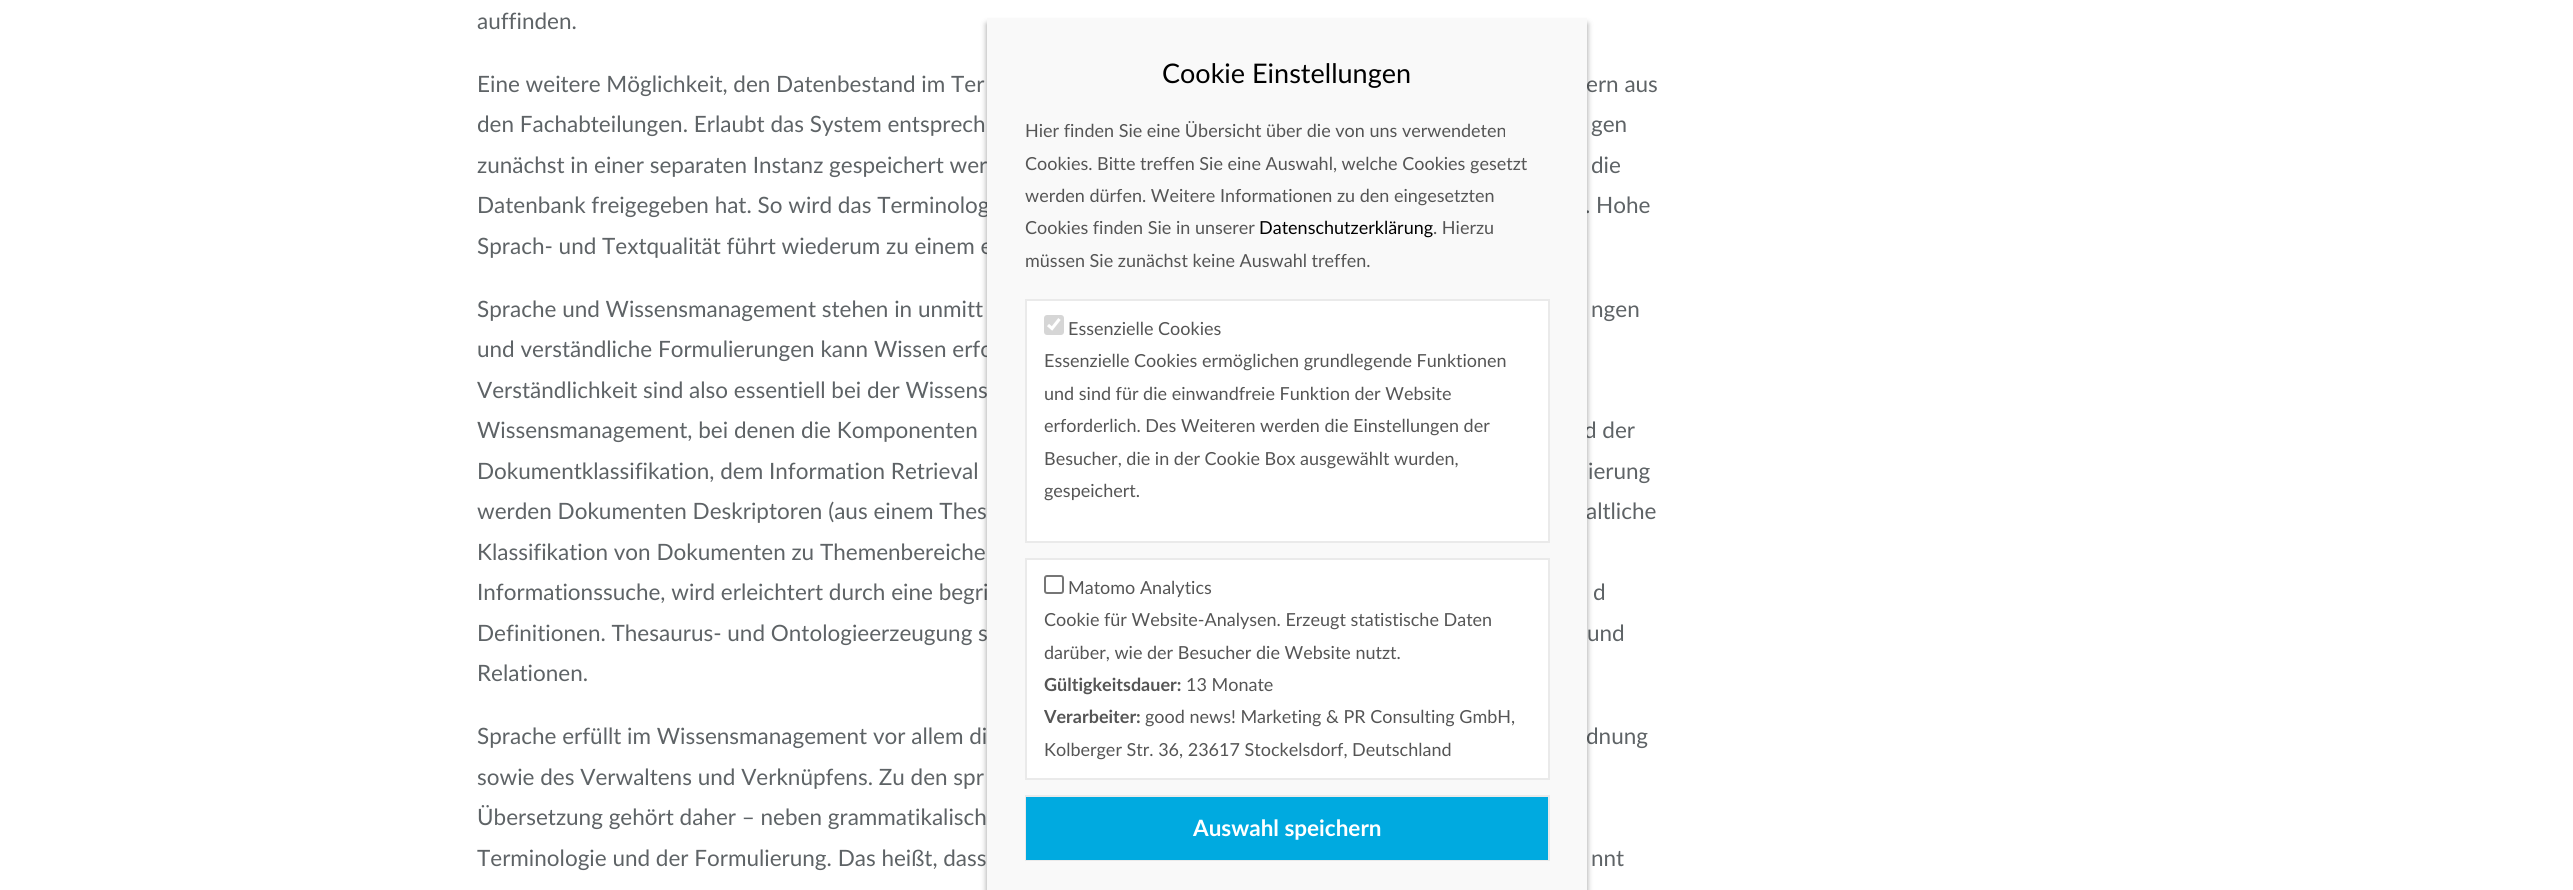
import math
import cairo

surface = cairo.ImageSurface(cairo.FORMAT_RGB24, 2573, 890)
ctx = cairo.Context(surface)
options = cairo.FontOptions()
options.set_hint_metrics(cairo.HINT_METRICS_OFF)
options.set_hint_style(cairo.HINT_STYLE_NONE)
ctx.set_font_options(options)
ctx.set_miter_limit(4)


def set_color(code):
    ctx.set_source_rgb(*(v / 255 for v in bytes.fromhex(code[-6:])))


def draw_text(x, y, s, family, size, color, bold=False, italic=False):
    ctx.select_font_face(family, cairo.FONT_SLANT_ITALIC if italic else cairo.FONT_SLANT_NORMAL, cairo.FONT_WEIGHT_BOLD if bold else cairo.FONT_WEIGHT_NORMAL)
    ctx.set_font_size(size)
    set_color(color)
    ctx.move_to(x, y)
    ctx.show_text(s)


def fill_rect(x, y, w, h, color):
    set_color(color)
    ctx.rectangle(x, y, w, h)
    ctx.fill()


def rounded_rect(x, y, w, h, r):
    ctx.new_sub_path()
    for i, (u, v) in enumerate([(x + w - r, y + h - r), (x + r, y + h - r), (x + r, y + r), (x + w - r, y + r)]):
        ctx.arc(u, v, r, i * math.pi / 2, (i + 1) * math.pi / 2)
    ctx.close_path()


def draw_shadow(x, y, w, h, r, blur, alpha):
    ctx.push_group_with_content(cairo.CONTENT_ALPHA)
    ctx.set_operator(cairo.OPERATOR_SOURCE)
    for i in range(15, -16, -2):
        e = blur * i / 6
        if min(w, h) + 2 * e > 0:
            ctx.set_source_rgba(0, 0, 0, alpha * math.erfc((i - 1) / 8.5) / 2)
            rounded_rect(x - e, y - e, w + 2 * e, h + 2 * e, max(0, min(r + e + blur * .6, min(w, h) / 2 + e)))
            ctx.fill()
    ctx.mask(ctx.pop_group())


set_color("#ffffff")
ctx.paint()
draw_text(477, 29, "auffinden.", "Lato", 22.5, "#5e6366")
draw_text(477, 92, "Eine weitere Möglichkeit, den Datenbestand im Ter", "Lato", 22.5, "#5e6366")
draw_text(1586, 92, "ern aus", "Lato", 22.5, "#5e6366")
draw_text(477, 132, "den Fachabteilungen. Erlaubt das System entsprech", "Lato", 22.5, "#5e6366")
draw_text(1591, 132, "gen", "Lato", 22.5, "#5e6366")
draw_text(477, 173, "zunächst in einer separaten Instanz gespeichert wer", "Lato", 22.5, "#5e6366")
draw_text(1591, 173, "die", "Lato", 22.5, "#5e6366")
draw_text(477, 213, "Datenbank freigegeben hat. So wird das Terminolog", "Lato", 22.5, "#5e6366")
draw_text(1585, 213, ". Hohe", "Lato", 22.5, "#5e6366")
draw_text(477, 254, "Sprach- und Textqualität führt wiederum zu einem e", "Lato", 22.5, "#5e6366")
draw_text(477, 317, "Sprache und Wissensmanagement stehen in unmitt", "Lato", 22.5, "#5e6366")
draw_text(1591, 317, "ngen", "Lato", 22.5, "#5e6366")
draw_text(477, 357, "und verständliche Formulierungen kann Wissen erfo", "Lato", 22.5, "#5e6366")
draw_text(477, 398, "Verständlichkeit sind also essentiell bei der Wissens", "Lato", 22.5, "#5e6366")
draw_text(477, 438, "Wissensmanagement, bei denen die Komponenten", "Lato", 22.5, "#5e6366")
draw_text(1584, 438, "d der", "Lato", 22.5, "#5e6366")
draw_text(477, 479, "Dokumentklassifikation, dem Information Retrieval", "Lato", 22.5, "#5e6366")
draw_text(1588, 479, "ierung", "Lato", 22.5, "#5e6366")
draw_text(477, 519, "werden Dokumenten Deskriptoren (aus einem Thes", "Lato", 22.5, "#5e6366")
draw_text(1586, 519, "altliche", "Lato", 22.5, "#5e6366")
draw_text(477, 560, "Klassifikation von Dokumenten zu Themenbereiche", "Lato", 22.5, "#5e6366")
draw_text(477, 600, "Informationssuche, wird erleichtert durch eine begri", "Lato", 22.5, "#5e6366")
draw_text(1593, 600, "d", "Lato", 22.5, "#5e6366")
draw_text(477, 641, "Definitionen. Thesaurus- und Ontologieerzeugung s", "Lato", 22.5, "#5e6366")
draw_text(1587, 641, "und", "Lato", 22.5, "#5e6366")
draw_text(477, 681, "Relationen.", "Lato", 22.5, "#5e6366")
draw_text(477, 744, "Sprache erfüllt im Wissensmanagement vor allem di", "Lato", 22.5, "#5e6366")
draw_text(1586, 744, "dnung", "Lato", 22.5, "#5e6366")
draw_text(477, 785, "sowie des Verwaltens und Verknüpfens. Zu den spr", "Lato", 22.5, "#5e6366")
draw_text(477, 825, "Übersetzung gehört daher – neben grammatikalisch", "Lato", 22.5, "#5e6366")
draw_text(477, 866, "Terminologie und der Formulierung. Das heißt, dass", "Lato", 22.5, "#5e6366")
draw_text(1591, 866, "nnt", "Lato", 22.5, "#5e6366")
set_color("#000000")
draw_shadow(987, 24, 600, 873, 0, 3, 0.4)
fill_rect(987, 18, 600, 872, "#f9f9f9")
draw_text(1162, 83, "Cookie Einstellungen", "Lato", 27, "#000000")
draw_text(1025, 137, "Hier finden Sie eine Übersicht über die von uns verwendeten", "Lato", 18, "#555555")
draw_text(1025, 170, "Cookies. Bitte treffen Sie eine Auswahl, welche Cookies gesetzt", "Lato", 18, "#555555")
draw_text(1025, 202, "werden dürfen. Weitere Informationen zu den eingesetzten", "Lato", 18, "#555555")
draw_text(1025, 234, "Cookies finden Sie in unserer", "Lato", 18, "#555555")
draw_text(1259, 234, "Datenschutzerklärung", "Lato", 18, "#000000")
draw_text(1433, 234, ". Hierzu", "Lato", 18, "#555555")
draw_text(1025, 267, "müssen Sie zunächst keine Auswahl treffen.", "Lato", 18, "#555555")
set_color("#ffffff")
ctx.rectangle(1026, 300, 523, 242)
ctx.fill_preserve()
set_color("#eaeaea")
ctx.stroke()
set_color("#d6d6d6")
rounded_rect(1044, 315, 20, 20, 3)
ctx.fill()
ctx.new_path()
ctx.move_to(1048, 325)
ctx.line_to(1052, 328.5)
ctx.line_to(1059.5, 319)
set_color("#ffffff")
ctx.set_line_width(3.1)
ctx.stroke()
draw_text(1068, 335, "Essenzielle Cookies", "Lato", 18, "#555555")
draw_text(1044, 367, "Essenzielle Cookies ermöglichen grundlegende Funktionen", "Lato", 18, "#555555")
draw_text(1044, 400, "und sind für die einwandfreie Funktion der Website", "Lato", 18, "#555555")
draw_text(1044, 432, "erforderlich. Des Weiteren werden die Einstellungen der", "Lato", 18, "#555555")
draw_text(1044, 465, "Besucher, die in der Cookie Box ausgewählt wurden,", "Lato", 18, "#555555")
draw_text(1044, 497, "gespeichert.", "Lato", 18, "#555555")
set_color("#ffffff")
ctx.rectangle(1026, 559, 523, 220)
ctx.fill_preserve()
set_color("#eaeaea")
ctx.set_line_width(2)
ctx.stroke()
rounded_rect(1045, 576, 18, 17, 2)
set_color("#767676")
ctx.stroke()
draw_text(1068, 594, "Matomo Analytics", "Lato", 18, "#555555")
draw_text(1044, 626, "Cookie für Website-Analysen. Erzeugt statistische Daten", "Lato", 18, "#555555")
draw_text(1044, 659, "darüber, wie der Besucher die Website nutzt.", "Lato", 18, "#555555")
draw_text(1044, 691, "Gültigkeitsdauer:", "Lato", 18, "#555555", bold=True)
draw_text(1186, 691, "13 Monate", "Lato", 18, "#555555")
draw_text(1044, 723, "Verarbeiter:", "Lato", 18, "#555555", bold=True)
draw_text(1145, 723, "good news! Marketing & PR Consulting GmbH,", "Lato", 18, "#555555")
draw_text(1044, 756, "Kolberger Str. 36, 23617 Stockelsdorf, Deutschland", "Lato", 18, "#555555")
ctx.rectangle(1026, 796, 523, 64)
set_color("#eaeaea")
ctx.stroke()
fill_rect(1026, 797, 522, 63, "#00aae0")
draw_text(1193, 836, "Auswahl speichern", "Lato", 22.5, "#ffffff", bold=True)
surface.write_to_png("output.png")
